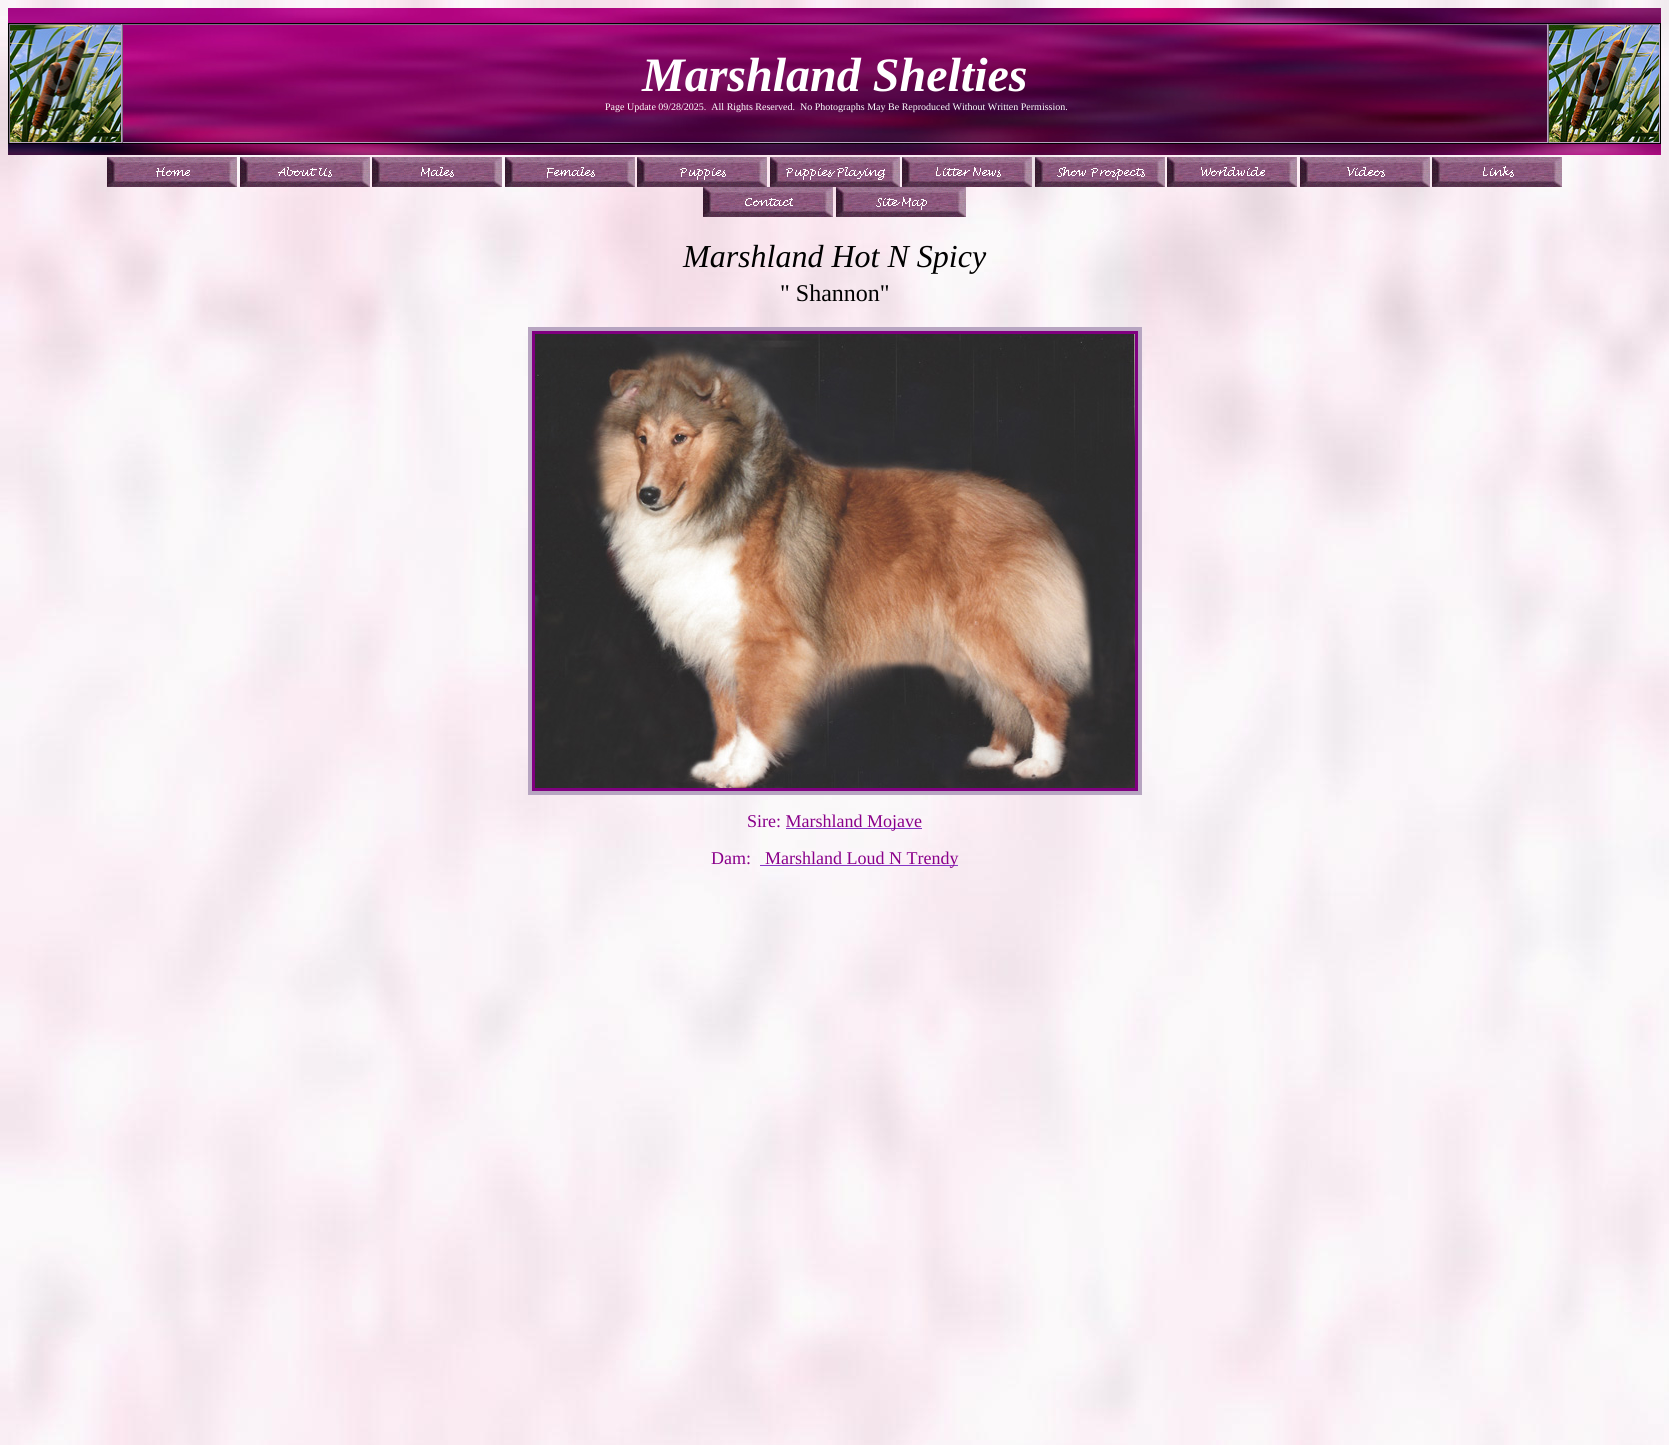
import math
import cairo

surface = cairo.ImageSurface(cairo.FORMAT_RGB24, 1669, 1445)
ctx = cairo.Context(surface)
options = cairo.FontOptions()
options.set_hint_metrics(cairo.HINT_METRICS_OFF)
options.set_hint_style(cairo.HINT_STYLE_NONE)
ctx.set_font_options(options)
ctx.set_miter_limit(4)


def set_color(code):
    ctx.set_source_rgb(*(v / 255 for v in bytes.fromhex(code[-6:])))


def draw_text(x, y, s, family, size, color, bold=False, italic=False):
    ctx.select_font_face(family, cairo.FONT_SLANT_ITALIC if italic else cairo.FONT_SLANT_NORMAL, cairo.FONT_WEIGHT_BOLD if bold else cairo.FONT_WEIGHT_NORMAL)
    ctx.set_font_size(size)
    set_color(color)
    ctx.move_to(x, y)
    ctx.show_text(s)


def fill_rect(x, y, w, h, color):
    set_color(color)
    ctx.rectangle(x, y, w, h)
    ctx.fill()


def draw_image(path, x, y, w, h):
    ctx.save()
    ctx.set_source_surface(cairo.ImageSurface.create_from_png(path), x, y)
    ctx.rectangle(x, y, w, h)
    ctx.fill()
    ctx.restore()


set_color("#ffffff")
ctx.paint()
draw_image("assets/img1.png", 0, 0, 1669, 1445)
draw_image("assets/img2.png", 8, 8, 1653, 147)
ctx.rectangle(8.5, 23.5, 1652, 120)
set_color("#000000")
ctx.set_line_width(1)
ctx.stroke()
fill_rect(9, 24, 1651, 1, "#7a6e81")
fill_rect(121, 24, 1, 119, "#b7a5c1")
fill_rect(9, 142, 113, 1, "#b7a5c1")
fill_rect(9, 24, 1, 119, "#7a6e81")
draw_image("assets/img3.png", 10, 25, 111, 117)
fill_rect(1547, 24, 1, 119, "#b7a5c1")
fill_rect(122, 142, 1426, 1, "#b7a5c1")
fill_rect(122, 24, 1, 119, "#7a6e81")
draw_text(642, 91, "Marshland Shelties", "Liberation Serif", 48, "#ffffff", bold=True, italic=True)
draw_text(605, 110, "Page Update 09/28/2025.  All Rights Reserved.  No Photographs May Be Reproduced Without Written Permission.", "Liberation Serif", 10, "#ffffff")
fill_rect(1659, 24, 1, 119, "#b7a5c1")
fill_rect(1548, 142, 112, 1, "#b7a5c1")
fill_rect(1548, 24, 1, 119, "#7a6e81")
draw_image("assets/img4.png", 1549, 25, 110, 117)
draw_image("assets/img5.png", 107, 157, 130, 30)
draw_image("assets/img6.png", 240, 157, 130, 30)
draw_image("assets/img7.png", 372, 157, 130, 30)
draw_image("assets/img8.png", 505, 157, 130, 30)
draw_image("assets/img9.png", 637, 157, 130, 30)
draw_image("assets/img10.png", 770, 157, 130, 30)
draw_image("assets/img11.png", 902, 157, 130, 30)
draw_image("assets/img12.png", 1035, 157, 130, 30)
draw_image("assets/img13.png", 1167, 157, 130, 30)
draw_image("assets/img14.png", 1300, 157, 130, 30)
draw_image("assets/img15.png", 1432, 157, 130, 30)
draw_image("assets/img16.png", 703, 187, 130, 30)
draw_image("assets/img17.png", 836, 187, 130, 30)
draw_text(683, 267, "Marshland Hot N Spicy", "Liberation Serif", 32, "#000000", italic=True)
draw_text(780, 301, "\" Shannon\"", "Liberation Serif", 24, "#000000")
fill_rect(532, 331, 606, 460, "#800080")
fill_rect(528, 327, 614, 4, "#b7a5c1")
fill_rect(1138, 327, 4, 468, "#b7a5c1")
fill_rect(528, 791, 614, 4, "#b7a5c1")
fill_rect(528, 327, 4, 468, "#b7a5c1")
draw_image("assets/img18.png", 535, 334, 600, 454)
draw_text(747, 827, "Sire: Marshland", "Liberation Serif", 18, "#8a008a")
fill_rect(786, 828, 136, 1, "#8634c6")
draw_text(867, 827, "Mojave", "Liberation Serif", 18, "#8a008a")
draw_text(711, 864, "Dam:", "Liberation Serif", 18, "#8a008a")
fill_rect(760, 865, 198, 1, "#8634c6")
draw_text(765, 864, "Marshland Loud N Trendy", "Liberation Serif", 18, "#8a008a")
surface.write_to_png("output.png")
